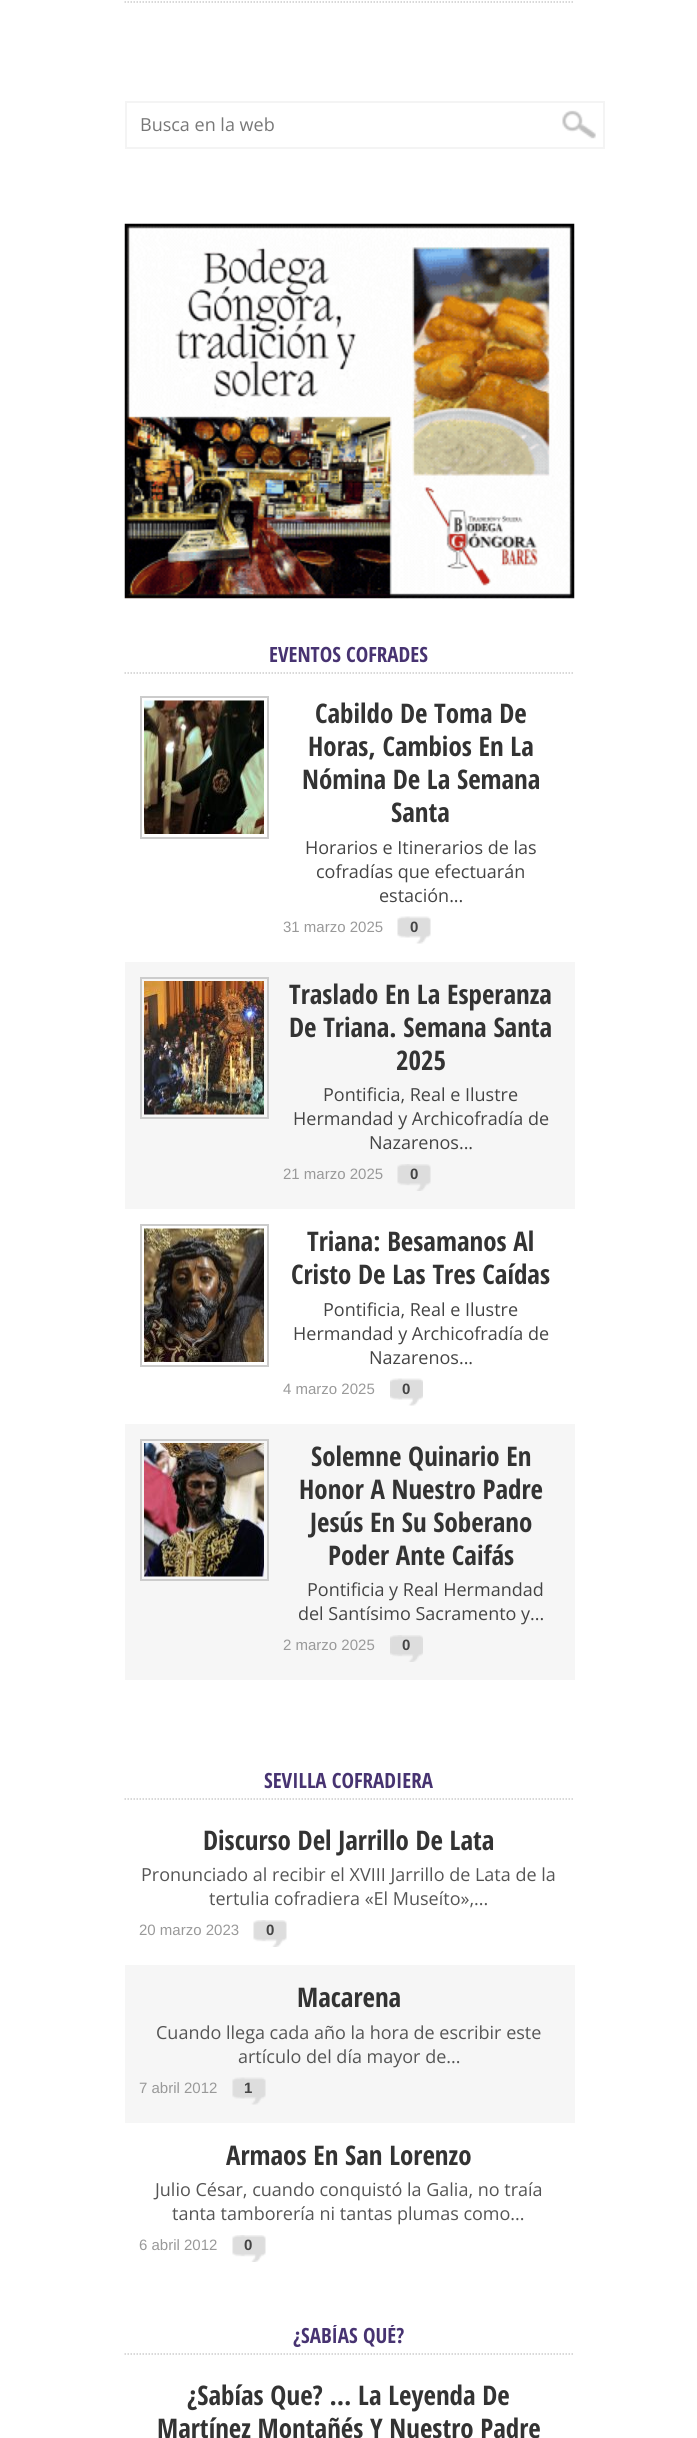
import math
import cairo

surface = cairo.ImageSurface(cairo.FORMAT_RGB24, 697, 2438)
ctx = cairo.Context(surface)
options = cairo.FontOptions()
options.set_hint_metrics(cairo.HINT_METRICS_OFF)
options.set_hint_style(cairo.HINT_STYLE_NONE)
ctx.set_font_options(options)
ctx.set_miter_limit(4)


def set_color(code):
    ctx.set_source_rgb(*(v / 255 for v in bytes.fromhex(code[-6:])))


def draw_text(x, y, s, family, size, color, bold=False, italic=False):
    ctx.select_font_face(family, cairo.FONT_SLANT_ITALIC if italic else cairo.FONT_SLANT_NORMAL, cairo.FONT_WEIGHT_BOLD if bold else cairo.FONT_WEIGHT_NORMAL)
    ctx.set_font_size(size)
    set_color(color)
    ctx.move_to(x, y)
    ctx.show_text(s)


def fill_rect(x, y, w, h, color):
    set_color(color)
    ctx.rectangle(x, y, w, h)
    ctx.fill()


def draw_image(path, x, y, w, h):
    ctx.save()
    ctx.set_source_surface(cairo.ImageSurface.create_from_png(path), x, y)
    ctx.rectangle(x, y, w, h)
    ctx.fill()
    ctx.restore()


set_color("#ffffff")
ctx.paint()
ctx.new_path()
ctx.move_to(124.5, 2)
ctx.line_to(574.5, 2)
set_color("#cccccc")
ctx.set_line_width(1.5)
ctx.set_dash([1.5, 1.5])
ctx.stroke()
draw_image("assets/img1.png", 562, 110, 34, 29)
ctx.rectangle(126, 102, 478, 46)
set_color("#f4f4f4")
ctx.set_line_width(2)
ctx.set_dash([])
ctx.stroke()
draw_text(140, 131, "Busca en la web", "Open Sans", 18, "#777777")
draw_image("assets/img2.png", 124, 223, 451, 376)
ctx.new_path()
ctx.move_to(124.5, 673)
ctx.line_to(574.5, 673)
set_color("#cccccc")
ctx.set_line_width(1.5)
ctx.set_dash([1.5, 1.5])
ctx.stroke()
draw_text(269, 662, "EVENTOS COFRADES", "Open Sans Condensed", 21, "#473371", bold=True)
ctx.rectangle(141, 697, 127, 141)
set_color("#cccccc")
ctx.set_line_width(2)
ctx.set_dash([])
ctx.stroke()
draw_image("assets/img3.png", 144, 700, 120, 134)
draw_text(315, 723, "Cabildo De Toma De", "Open Sans Condensed", 27, "#333333", bold=True)
draw_text(308, 756, "Horas, Cambios En La", "Open Sans Condensed", 27, "#333333", bold=True)
draw_text(302, 789, "Nómina De La Semana", "Open Sans Condensed", 27, "#333333", bold=True)
draw_text(391, 822, "Santa", "Open Sans Condensed", 27, "#333333", bold=True)
draw_text(305, 854, "Horarios e Itinerarios de las", "Open Sans", 18, "#444444")
draw_text(316, 878, "cofradías que efectuarán", "Open Sans", 18, "#444444")
draw_text(379, 902, "estación...", "Open Sans", 18, "#444444")
draw_text(283, 932, "31 marzo 2025", "Liberation Sans", 15, "#999999")
draw_image("assets/img4.png", 397, 916, 34, 28)
draw_text(410, 932, "0", "Liberation Sans", 15, "#444444", bold=True)
fill_rect(125, 962, 450, 247, "#f6f6f6")
ctx.rectangle(141, 978, 127, 140)
set_color("#cccccc")
ctx.stroke()
draw_image("assets/img5.png", 144, 981, 120, 134)
draw_text(289, 1004, "Traslado En La Esperanza", "Open Sans Condensed", 27, "#333333", bold=True)
draw_text(289, 1037, "De Triana. Semana Santa", "Open Sans Condensed", 27, "#333333", bold=True)
draw_text(396, 1070, "2025", "Open Sans Condensed", 27, "#333333", bold=True)
draw_text(323, 1101, "Pontificia, Real e Ilustre", "Open Sans", 18, "#444444")
draw_text(293, 1125, "Hermandad y Archicofradía de", "Open Sans", 18, "#444444")
draw_text(369, 1149, "Nazarenos...", "Open Sans", 18, "#444444")
draw_text(283, 1179, "21 marzo 2025", "Liberation Sans", 15, "#999999")
draw_image("assets/img6.png", 397, 1164, 34, 27)
draw_text(410, 1179, "0", "Liberation Sans", 15, "#444444", bold=True)
ctx.rectangle(141, 1225, 127, 141)
set_color("#cccccc")
ctx.stroke()
draw_image("assets/img7.png", 144, 1228, 120, 134)
draw_text(307, 1251, "Triana: Besamanos Al", "Open Sans Condensed", 27, "#333333", bold=True)
draw_text(291, 1284, "Cristo De Las Tres Caídas", "Open Sans Condensed", 27, "#333333", bold=True)
draw_text(323, 1316, "Pontificia, Real e Ilustre", "Open Sans", 18, "#444444")
draw_text(293, 1340, "Hermandad y Archicofradía de", "Open Sans", 18, "#444444")
draw_text(369, 1364, "Nazarenos...", "Open Sans", 18, "#444444")
draw_text(283, 1394, "4 marzo 2025", "Liberation Sans", 15, "#999999")
draw_image("assets/img8.png", 390, 1378, 33, 28)
draw_text(402, 1394, "0", "Liberation Sans", 15, "#444444", bold=True)
fill_rect(125, 1424, 450, 256, "#f6f6f6")
ctx.rectangle(141, 1440, 127, 140)
set_color("#cccccc")
ctx.stroke()
draw_image("assets/img9.png", 144, 1443, 120, 134)
draw_text(311, 1466, "Solemne Quinario En", "Open Sans Condensed", 27, "#333333", bold=True)
draw_text(299, 1499, "Honor A Nuestro Padre", "Open Sans Condensed", 27, "#333333", bold=True)
draw_text(310, 1532, "Jesús En Su Soberano", "Open Sans Condensed", 27, "#333333", bold=True)
draw_text(328, 1565, "Poder Ante Caifás", "Open Sans Condensed", 27, "#333333", bold=True)
draw_text(307, 1596, "Pontificia y Real Hermandad", "Open Sans", 18, "#444444")
draw_text(298, 1620, "del Santísimo Sacramento y...", "Open Sans", 18, "#444444")
draw_text(283, 1650, "2 marzo 2025", "Liberation Sans", 15, "#999999")
draw_image("assets/img10.png", 390, 1635, 33, 27)
draw_text(402, 1650, "0", "Liberation Sans", 15, "#444444", bold=True)
ctx.new_path()
ctx.move_to(124.5, 1799)
ctx.line_to(574.5, 1799)
set_color("#cccccc")
ctx.set_line_width(1.5)
ctx.set_dash([1.5, 1.5])
ctx.stroke()
draw_text(264, 1788, "SEVILLA COFRADIERA", "Open Sans Condensed", 21, "#473371", bold=True)
draw_text(203, 1850, "Discurso Del Jarrillo De Lata", "Open Sans Condensed", 27, "#333333", bold=True)
draw_text(141, 1881, "Pronunciado al recibir el XVIII Jarrillo de Lata de la", "Open Sans", 18, "#555555")
draw_text(209, 1905, "tertulia cofradiera «El Museíto»,...", "Open Sans", 18, "#555555")
draw_text(139, 1935, "20 marzo 2023", "Liberation Sans", 15, "#999999")
draw_image("assets/img11.png", 253, 1920, 34, 27)
draw_text(266, 1935, "0", "Liberation Sans", 15, "#444444", bold=True)
fill_rect(125, 1965, 450, 158, "#f6f6f6")
draw_text(297, 2007, "Macarena", "Open Sans Condensed", 27, "#333333", bold=True)
draw_text(156, 2039, "Cuando llega cada año la hora de escribir este", "Open Sans", 18, "#555555")
draw_text(238, 2063, "artículo del día mayor de...", "Open Sans", 18, "#555555")
draw_text(139, 2093, "7 abril 2012", "Liberation Sans", 15, "#999999")
draw_image("assets/img12.png", 232, 2077, 34, 28)
draw_text(244, 2093, "1", "Liberation Sans", 15, "#444444", bold=True)
draw_text(226, 2165, "Armaos En San Lorenzo", "Open Sans Condensed", 27, "#333333", bold=True)
draw_text(155, 2196, "Julio César, cuando conquistó la Galia, no traía", "Open Sans", 18, "#555555")
draw_text(172, 2220, "tanta tamborería ni tantas plumas como...", "Open Sans", 18, "#555555")
draw_text(139, 2250, "6 abril 2012", "Liberation Sans", 15, "#999999")
draw_image("assets/img11.png", 232, 2235, 34, 27)
draw_text(244, 2250, "0", "Liberation Sans", 15, "#444444", bold=True)
ctx.new_path()
ctx.move_to(124.5, 2354)
ctx.line_to(574.5, 2354)
set_color("#cccccc")
ctx.stroke()
ctx.save()
ctx.rectangle(125, 2325, 450, 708)
ctx.clip()
draw_text(293, 2343, "¿SABÍAS QUÉ?", "Open Sans Condensed", 21, "#473371", bold=True)
ctx.restore()
draw_text(187, 2405, "¿Sabías Que? … La Leyenda De", "Open Sans Condensed", 27, "#333333", bold=True)
draw_text(157, 2438, "Martínez Montañés Y Nuestro Padre", "Open Sans Condensed", 27, "#333333", bold=True)
surface.write_to_png("output.png")
